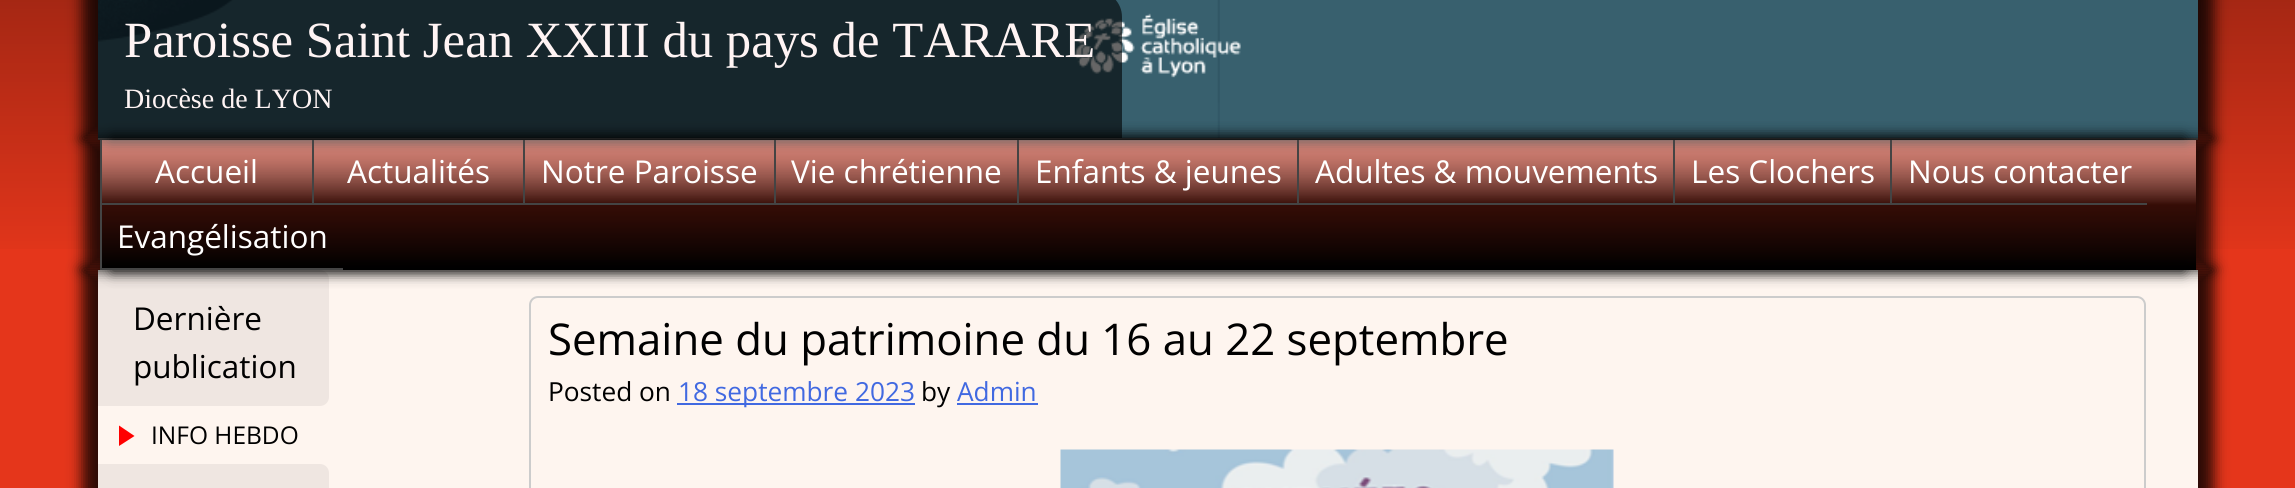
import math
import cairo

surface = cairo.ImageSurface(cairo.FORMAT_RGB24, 2295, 488)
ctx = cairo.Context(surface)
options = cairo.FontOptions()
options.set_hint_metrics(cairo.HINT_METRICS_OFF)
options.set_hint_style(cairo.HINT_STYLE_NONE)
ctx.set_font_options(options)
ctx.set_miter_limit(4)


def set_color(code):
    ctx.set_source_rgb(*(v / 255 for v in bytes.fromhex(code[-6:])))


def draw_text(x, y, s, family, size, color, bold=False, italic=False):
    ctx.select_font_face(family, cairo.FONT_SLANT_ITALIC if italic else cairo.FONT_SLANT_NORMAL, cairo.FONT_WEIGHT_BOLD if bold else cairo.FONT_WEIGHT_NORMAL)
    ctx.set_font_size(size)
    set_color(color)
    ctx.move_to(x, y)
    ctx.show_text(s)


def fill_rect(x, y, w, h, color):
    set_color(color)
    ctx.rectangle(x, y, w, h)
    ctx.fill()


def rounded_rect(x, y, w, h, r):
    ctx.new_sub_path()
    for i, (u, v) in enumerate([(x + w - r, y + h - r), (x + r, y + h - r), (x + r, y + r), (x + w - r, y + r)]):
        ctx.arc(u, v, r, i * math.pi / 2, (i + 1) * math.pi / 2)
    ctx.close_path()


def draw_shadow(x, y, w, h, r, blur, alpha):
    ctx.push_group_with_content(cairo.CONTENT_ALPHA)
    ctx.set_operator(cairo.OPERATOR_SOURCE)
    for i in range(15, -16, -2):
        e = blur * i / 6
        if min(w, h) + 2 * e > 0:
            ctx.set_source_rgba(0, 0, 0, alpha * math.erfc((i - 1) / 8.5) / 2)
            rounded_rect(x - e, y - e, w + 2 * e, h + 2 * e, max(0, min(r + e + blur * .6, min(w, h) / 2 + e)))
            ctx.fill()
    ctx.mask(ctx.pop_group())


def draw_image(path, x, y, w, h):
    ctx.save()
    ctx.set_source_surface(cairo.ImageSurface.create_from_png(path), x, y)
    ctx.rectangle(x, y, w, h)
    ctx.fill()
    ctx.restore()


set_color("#e5361b")
ctx.paint()
set_color("#000000")
draw_shadow(82, 268, 2104, 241, 0, 7, 0.8)
draw_shadow(110, 268, 2104, 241, 0, 7, 0.8)
gradient = cairo.LinearGradient(1148, -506, 1148, 270)
gradient.add_color_stop_rgba(0, 0, 0, 0, 0.8)
gradient.add_color_stop_rgba(1, 0, 0, 0, 0)
ctx.set_source(gradient)
ctx.rectangle(0, 0, 2295, 249)
ctx.fill()
set_color("#000000")
draw_shadow(82, -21, 2104, 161, 0, 7, 0.8)
draw_shadow(110, -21, 2104, 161, 0, 7, 0.8)
draw_image("assets/img1.png", 98, 0, 2100, 138)
fill_rect(98, 138, 2100, 2, "#555555")
fill_rect(98, 270, 2100, 218, "#fef5ef")
set_color("#efe6e1")
ctx.new_path()
ctx.move_to(98, 270)
ctx.line_to(320, 270)
ctx.curve_to(325, 270, 329, 274, 329, 279)
ctx.line_to(329, 397)
ctx.curve_to(329, 402, 325, 406, 320, 406)
ctx.line_to(98, 406)
ctx.close_path()
ctx.fill()
ctx.save()
ctx.set_fill_rule(cairo.FILL_RULE_EVEN_ODD)
ctx.new_path()
ctx.move_to(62, 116)
ctx.line_to(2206, 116)
ctx.line_to(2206, 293)
ctx.line_to(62, 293)
ctx.close_path()
ctx.move_to(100, 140)
ctx.line_to(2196, 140)
ctx.line_to(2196, 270)
ctx.line_to(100, 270)
ctx.close_path()
ctx.clip()
set_color("#000000")
draw_shadow(84, 138, 2100, 133, 0, 7, 0.8)
ctx.restore()
ctx.save()
ctx.set_fill_rule(cairo.FILL_RULE_EVEN_ODD)
ctx.new_path()
ctx.move_to(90, 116)
ctx.line_to(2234, 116)
ctx.line_to(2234, 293)
ctx.line_to(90, 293)
ctx.close_path()
ctx.move_to(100, 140)
ctx.line_to(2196, 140)
ctx.line_to(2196, 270)
ctx.line_to(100, 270)
ctx.close_path()
ctx.clip()
set_color("#000000")
draw_shadow(112, 138, 2100, 133, 0, 7, 0.8)
ctx.restore()
ctx.set_source_rgba(0, 0, 0, 0.6)
ctx.new_path()
ctx.move_to(98, -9)
ctx.line_to(1096, -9)
ctx.curve_to(1110.5, -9, 1122, 2.5, 1122, 17)
ctx.line_to(1122, 138)
ctx.line_to(98, 138)
ctx.close_path()
ctx.fill()
draw_text(124, 57, "Paroisse Saint Jean XXIII du pays de TARARE", "Liberation Serif", 50.75, "#fff4f4")
draw_text(124, 108, "Diocèse de LYON", "Liberation Serif", 28, "#fff4f4")
gradient = cairo.LinearGradient(1148, 140, 1148, 270)
gradient.add_color_stop_rgba(0, 1, 1, 1, 0.4)
gradient.add_color_stop_rgba(0.5, 0, 0, 0, 0.75)
gradient.add_color_stop_rgba(1, 0, 0, 0, 1)
ctx.set_source(gradient)
ctx.rectangle(102, 140, 2094, 130)
ctx.fill()
fill_rect(100, 203, 2047, 2, "#444444")
fill_rect(100, 140, 2, 65, "#444444")
draw_text(155, 183, "Accueil", "Open Sans", 31.5, "#ffffff")
fill_rect(312, 140, 2, 65, "#444444")
draw_text(347, 183, "Actualités", "Open Sans", 31.5, "#ffffff")
fill_rect(523, 140, 2, 65, "#444444")
draw_text(541, 183, "Notre Paroisse", "Open Sans", 31.5, "#ffffff")
fill_rect(774, 140, 2, 65, "#444444")
draw_text(791, 183, "Vie chrétienne", "Open Sans", 31.5, "#ffffff")
fill_rect(1017, 140, 2, 65, "#444444")
draw_text(1035, 183, "Enfants & jeunes", "Open Sans", 31.5, "#ffffff")
fill_rect(1297, 140, 2, 65, "#444444")
draw_text(1315, 183, "Adultes & mouvements", "Open Sans", 31.5, "#ffffff")
fill_rect(1673, 140, 2, 65, "#444444")
draw_text(1691, 183, "Les Clochers", "Open Sans", 31.5, "#ffffff")
fill_rect(1890, 140, 2, 65, "#444444")
draw_text(1908, 183, "Nous contacter", "Open Sans", 31.5, "#ffffff")
fill_rect(100, 268, 243, 2, "#444444")
fill_rect(100, 205, 2, 65, "#444444")
draw_text(117, 248, "Evangélisation", "Open Sans", 31.5, "#ffffff")
draw_text(133, 330, "Dernière", "Open Sans", 31.5, "#000000")
draw_text(133, 378, "publication", "Open Sans", 31.5, "#000000")
set_color("#ff0000")
ctx.new_path()
ctx.move_to(119, 425.5)
ctx.line_to(134.5, 436)
ctx.line_to(119, 446)
ctx.close_path()
ctx.fill()
draw_text(151, 444, "INFO HEBDO", "Open Sans", 24.5, "#000000")
set_color("#efe6e1")
ctx.new_path()
ctx.move_to(98, 464)
ctx.line_to(320, 464)
ctx.curve_to(325, 464, 329, 468, 329, 473)
ctx.line_to(329, 488)
ctx.curve_to(329, 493, 325, 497, 320, 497)
ctx.line_to(98, 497)
ctx.close_path()
ctx.fill()
rounded_rect(530, 297, 1615, 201, 8)
set_color("#cccccc")
ctx.stroke()
draw_text(548, 355, "Semaine du patrimoine du 16 au 22 septembre", "Open Sans", 43.75, "#000000")
draw_text(548, 401, "Posted on", "Open Sans", 26.25, "#000000")
fill_rect(677, 403, 238, 2, "#4169e1")
draw_text(678, 401, "18 septembre 2023", "Open Sans", 26.25, "#4169e1")
draw_text(921, 401, "by", "Open Sans", 26.25, "#000000")
fill_rect(957, 403, 81, 2, "#4169e1")
draw_text(957, 401, "Admin", "Open Sans", 26.25, "#4169e1")
draw_image("assets/img2.png", 1060, 449, 554, 39)
surface.write_to_png("output.png")
